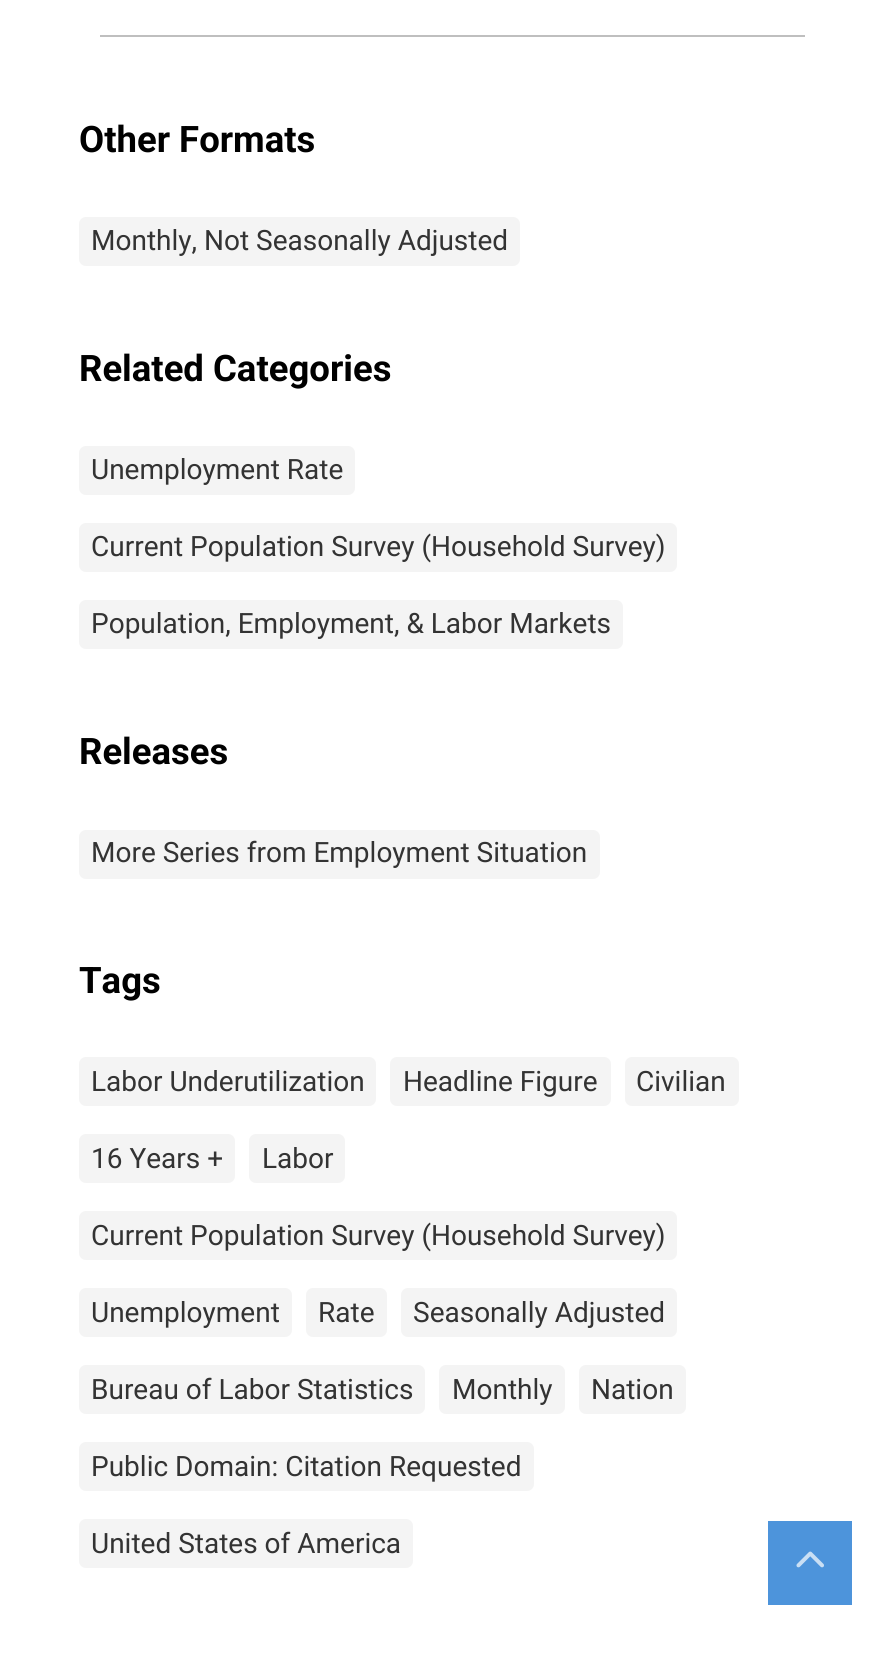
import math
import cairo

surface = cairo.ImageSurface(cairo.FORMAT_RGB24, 877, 1674)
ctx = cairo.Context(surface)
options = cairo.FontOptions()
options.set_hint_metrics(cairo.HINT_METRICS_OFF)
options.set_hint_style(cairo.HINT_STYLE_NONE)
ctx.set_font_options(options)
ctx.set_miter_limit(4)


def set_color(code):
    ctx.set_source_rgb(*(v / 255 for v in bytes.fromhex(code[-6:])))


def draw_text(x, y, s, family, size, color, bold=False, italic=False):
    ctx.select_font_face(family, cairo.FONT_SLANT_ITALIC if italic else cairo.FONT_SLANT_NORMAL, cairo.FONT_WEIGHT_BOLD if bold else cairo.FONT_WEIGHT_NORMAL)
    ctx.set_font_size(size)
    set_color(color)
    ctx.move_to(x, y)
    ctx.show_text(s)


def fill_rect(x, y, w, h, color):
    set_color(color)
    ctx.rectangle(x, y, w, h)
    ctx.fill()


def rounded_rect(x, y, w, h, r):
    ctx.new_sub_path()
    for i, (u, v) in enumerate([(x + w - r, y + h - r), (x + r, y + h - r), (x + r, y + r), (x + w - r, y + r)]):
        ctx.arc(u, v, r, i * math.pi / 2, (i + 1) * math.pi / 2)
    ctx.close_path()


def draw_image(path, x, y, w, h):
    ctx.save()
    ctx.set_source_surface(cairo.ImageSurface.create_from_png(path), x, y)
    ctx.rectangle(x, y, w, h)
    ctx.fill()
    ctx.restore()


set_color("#ffffff")
ctx.paint()
fill_rect(100, 35, 705, 2, "#bfbfbf")
draw_text(79, 152, "Other Formats", "Roboto", 36.5, "#000000", bold=True)
set_color("#f4f4f4")
rounded_rect(79, 217, 441, 49, 7)
ctx.fill()
draw_text(91, 250, "Monthly, Not Seasonally Adjusted", "Roboto", 28, "#333333")
draw_text(79, 381, "Related Categories", "Roboto", 36.5, "#000000", bold=True)
set_color("#f4f4f4")
rounded_rect(79, 446, 276, 49, 7)
ctx.fill()
draw_text(91, 479, "Unemployment Rate", "Roboto", 28, "#333333")
set_color("#f4f4f4")
rounded_rect(79, 523, 598, 49, 7)
ctx.fill()
draw_text(91, 556, "Current Population Survey (Household Survey)", "Roboto", 28, "#333333")
set_color("#f4f4f4")
rounded_rect(79, 600, 544, 49, 7)
ctx.fill()
draw_text(91, 633, "Population, Employment, & Labor Markets", "Roboto", 28, "#333333")
draw_text(79, 764, "Releases", "Roboto", 36.5, "#000000", bold=True)
set_color("#f4f4f4")
rounded_rect(79, 830, 521, 49, 7)
ctx.fill()
draw_text(91, 862, "More Series from Employment Situation", "Roboto", 28, "#333333")
draw_text(79, 993, "Tags", "Roboto", 36.5, "#000000", bold=True)
set_color("#f4f4f4")
rounded_rect(79, 1057, 297, 49, 7)
ctx.fill()
draw_text(91, 1091, "Labor Underutilization", "Roboto", 28, "#333333")
set_color("#f4f4f4")
rounded_rect(390, 1057, 221, 49, 7)
ctx.fill()
draw_text(403, 1091, "Headline Figure", "Roboto", 28, "#333333")
set_color("#f4f4f4")
rounded_rect(625, 1057, 114, 49, 7)
ctx.fill()
draw_text(636, 1091, "Civilian", "Roboto", 28, "#333333")
set_color("#f4f4f4")
rounded_rect(79, 1134, 156, 49, 7)
ctx.fill()
draw_text(91, 1168, "16 Years +", "Roboto", 28, "#333333")
set_color("#f4f4f4")
rounded_rect(249, 1134, 96, 49, 7)
ctx.fill()
draw_text(262, 1168, "Labor", "Roboto", 28, "#333333")
set_color("#f4f4f4")
rounded_rect(79, 1211, 598, 49, 7)
ctx.fill()
draw_text(91, 1245, "Current Population Survey (Household Survey)", "Roboto", 28, "#333333")
set_color("#f4f4f4")
rounded_rect(79, 1288, 213, 49, 7)
ctx.fill()
draw_text(91, 1322, "Unemployment", "Roboto", 28, "#333333")
set_color("#f4f4f4")
rounded_rect(306, 1288, 81, 49, 7)
ctx.fill()
draw_text(318, 1322, "Rate", "Roboto", 28, "#333333")
set_color("#f4f4f4")
rounded_rect(401, 1288, 276, 49, 7)
ctx.fill()
draw_text(413, 1322, "Seasonally Adjusted", "Roboto", 28, "#333333")
set_color("#f4f4f4")
rounded_rect(79, 1365, 346, 49, 7)
ctx.fill()
draw_text(91, 1399, "Bureau of Labor Statistics", "Roboto", 28, "#333333")
set_color("#f4f4f4")
rounded_rect(439, 1365, 126, 49, 7)
ctx.fill()
draw_text(452, 1399, "Monthly", "Roboto", 28, "#333333")
set_color("#f4f4f4")
rounded_rect(579, 1365, 107, 49, 7)
ctx.fill()
draw_text(591, 1399, "Nation", "Roboto", 28, "#333333")
set_color("#f4f4f4")
rounded_rect(79, 1442, 455, 49, 7)
ctx.fill()
draw_text(91, 1476, "Public Domain: Citation Requested", "Roboto", 28, "#333333")
set_color("#f4f4f4")
rounded_rect(79, 1519, 334, 49, 7)
ctx.fill()
draw_text(91, 1553, "United States of America", "Roboto", 28, "#333333")
fill_rect(768, 1521, 84, 84, "#4d94db")
draw_image("assets/img1.png", 796, 1551, 28, 17)
surface.write_to_png("output.png")
